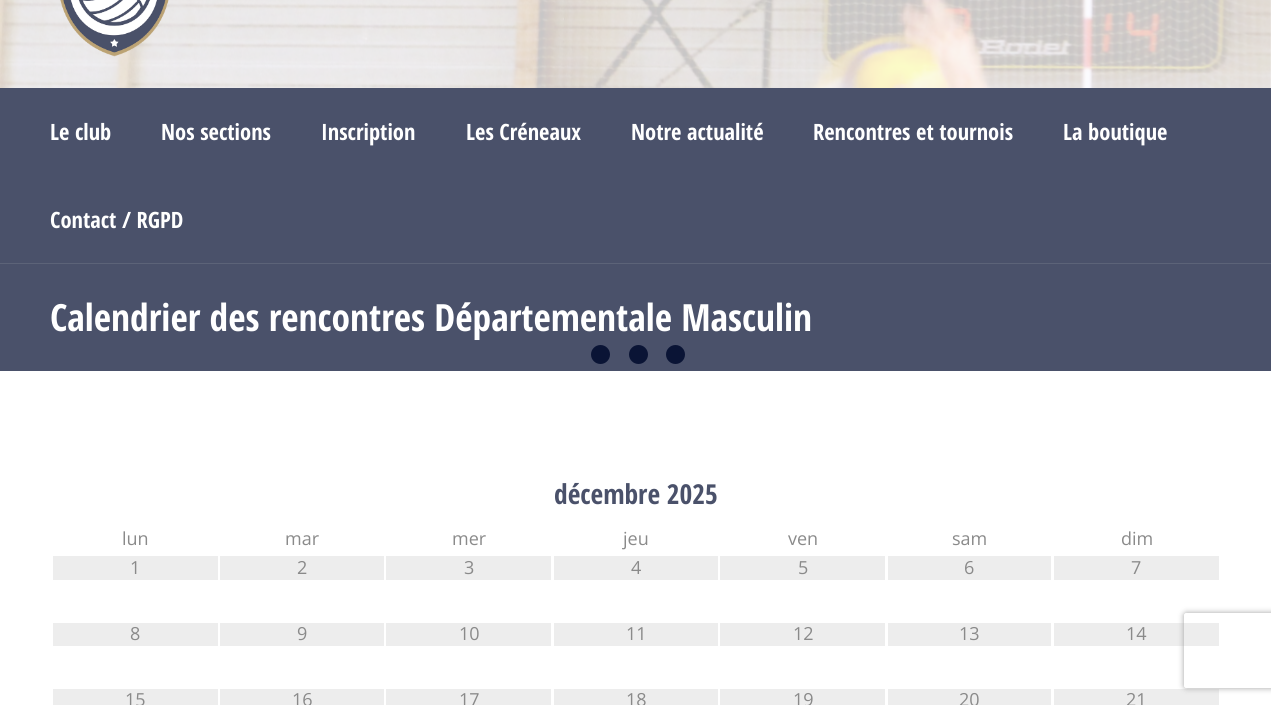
import math
import cairo

surface = cairo.ImageSurface(cairo.FORMAT_RGB24, 1271, 705)
ctx = cairo.Context(surface)
options = cairo.FontOptions()
options.set_hint_metrics(cairo.HINT_METRICS_OFF)
options.set_hint_style(cairo.HINT_STYLE_NONE)
ctx.set_font_options(options)
ctx.set_miter_limit(4)


def set_color(code):
    ctx.set_source_rgb(*(v / 255 for v in bytes.fromhex(code[-6:])))


def draw_text(x, y, s, family, size, color, bold=False, italic=False):
    ctx.select_font_face(family, cairo.FONT_SLANT_ITALIC if italic else cairo.FONT_SLANT_NORMAL, cairo.FONT_WEIGHT_BOLD if bold else cairo.FONT_WEIGHT_NORMAL)
    ctx.set_font_size(size)
    set_color(color)
    ctx.move_to(x, y)
    ctx.show_text(s)


def fill_rect(x, y, w, h, color):
    set_color(color)
    ctx.rectangle(x, y, w, h)
    ctx.fill()


def rounded_rect(x, y, w, h, r):
    ctx.new_sub_path()
    for i, (u, v) in enumerate([(x + w - r, y + h - r), (x + r, y + h - r), (x + r, y + r), (x + w - r, y + r)]):
        ctx.arc(u, v, r, i * math.pi / 2, (i + 1) * math.pi / 2)
    ctx.close_path()


def draw_shadow(x, y, w, h, r, blur, alpha):
    ctx.push_group_with_content(cairo.CONTENT_ALPHA)
    ctx.set_operator(cairo.OPERATOR_SOURCE)
    for i in range(15, -16, -2):
        e = blur * i / 6
        if min(w, h) + 2 * e > 0:
            ctx.set_source_rgba(0, 0, 0, alpha * math.erfc((i - 1) / 8.5) / 2)
            rounded_rect(x - e, y - e, w + 2 * e, h + 2 * e, max(0, min(r + e + blur * .6, min(w, h) / 2 + e)))
            ctx.fill()
    ctx.mask(ctx.pop_group())


def draw_image(path, x, y, w, h):
    ctx.save()
    ctx.set_source_surface(cairo.ImageSurface.create_from_png(path), x, y)
    ctx.rectangle(x, y, w, h)
    ctx.fill()
    ctx.restore()


set_color("#ffffff")
ctx.paint()
draw_image("assets/img1.png", 0, 0, 1271, 88)
ctx.set_source_rgba(1, 1, 1, 0.7)
ctx.rectangle(0, 0, 1271, 88)
ctx.fill()
draw_image("assets/img2.png", 60, 0, 109, 57)
fill_rect(0, 88, 1271, 175, "#4a516a")
draw_text(50, 140, "Le club", "Open Sans Condensed", 22.5, "#ffffff", bold=True)
draw_text(161, 140, "Nos sections", "Open Sans Condensed", 22.5, "#ffffff", bold=True)
draw_text(321, 140, "Inscription", "Open Sans Condensed", 22.5, "#ffffff", bold=True)
draw_text(466, 140, "Les Créneaux", "Open Sans Condensed", 22.5, "#ffffff", bold=True)
draw_text(631, 140, "Notre actualité", "Open Sans Condensed", 22.5, "#ffffff", bold=True)
draw_text(813, 140, "Rencontres et tournois", "Open Sans Condensed", 22.5, "#ffffff", bold=True)
draw_text(1063, 140, "La boutique", "Open Sans Condensed", 22.5, "#ffffff", bold=True)
draw_text(50, 228, "Contact / RGPD", "Open Sans Condensed", 22.5, "#ffffff", bold=True)
fill_rect(0, 264, 1271, 107, "#4a516a")
fill_rect(0, 263, 1271, 1, "#5c6378")
draw_text(50, 331, "Calendrier des rencontres Départementale Masculin", "Open Sans Condensed", 37.5, "#ffffff", bold=True)
draw_text(554, 504, "décembre 2025", "Open Sans Condensed", 27.5, "#4a516a", bold=True)
draw_text(122, 545, "lun", "Open Sans", 18, "#8a8a8a")
draw_text(285, 545, "mar", "Open Sans", 18, "#8a8a8a")
draw_text(452, 545, "mer", "Open Sans", 18, "#8a8a8a")
draw_text(623, 545, "jeu", "Open Sans", 18, "#8a8a8a")
draw_text(788, 545, "ven", "Open Sans", 18, "#8a8a8a")
draw_text(952, 545, "sam", "Open Sans", 18, "#8a8a8a")
draw_text(1121, 545, "dim", "Open Sans", 18, "#8a8a8a")
fill_rect(53, 556, 165, 24, "#ededed")
draw_text(130, 574, "1", "Open Sans", 18, "#8a8a8a")
fill_rect(220, 556, 164, 24, "#ededed")
draw_text(297, 574, "2", "Open Sans", 18, "#8a8a8a")
fill_rect(386, 556, 165, 24, "#ededed")
draw_text(464, 574, "3", "Open Sans", 18, "#8a8a8a")
fill_rect(554, 556, 164, 24, "#ededed")
draw_text(631, 574, "4", "Open Sans", 18, "#8a8a8a")
fill_rect(720, 556, 165, 24, "#ededed")
draw_text(798, 574, "5", "Open Sans", 18, "#8a8a8a")
fill_rect(888, 556, 163, 24, "#ededed")
draw_text(964, 574, "6", "Open Sans", 18, "#8a8a8a")
fill_rect(1054, 556, 165, 24, "#ededed")
draw_text(1131, 574, "7", "Open Sans", 18, "#8a8a8a")
fill_rect(53, 623, 165, 23, "#ededed")
draw_text(130, 640, "8", "Open Sans", 18, "#8a8a8a")
fill_rect(220, 623, 164, 23, "#ededed")
draw_text(297, 640, "9", "Open Sans", 18, "#8a8a8a")
fill_rect(386, 623, 165, 23, "#ededed")
draw_text(459, 640, "10", "Open Sans", 18, "#8a8a8a")
fill_rect(554, 623, 164, 23, "#ededed")
draw_text(626, 640, "11", "Open Sans", 18, "#8a8a8a")
fill_rect(720, 623, 165, 23, "#ededed")
draw_text(793, 640, "12", "Open Sans", 18, "#8a8a8a")
fill_rect(888, 623, 163, 23, "#ededed")
draw_text(959, 640, "13", "Open Sans", 18, "#8a8a8a")
fill_rect(1054, 623, 165, 23, "#ededed")
draw_text(1126, 640, "14", "Open Sans", 18, "#8a8a8a")
fill_rect(53, 689, 165, 16, "#ededed")
draw_text(125, 706, "15", "Open Sans", 18, "#8a8a8a")
fill_rect(220, 689, 164, 16, "#ededed")
draw_text(292, 706, "16", "Open Sans", 18, "#8a8a8a")
fill_rect(386, 689, 165, 16, "#ededed")
draw_text(459, 706, "17", "Open Sans", 18, "#8a8a8a")
fill_rect(554, 689, 164, 16, "#ededed")
draw_text(626, 706, "18", "Open Sans", 18, "#8a8a8a")
fill_rect(720, 689, 165, 16, "#ededed")
draw_text(793, 706, "19", "Open Sans", 18, "#8a8a8a")
fill_rect(888, 689, 163, 16, "#ededed")
draw_text(959, 706, "20", "Open Sans", 18, "#8a8a8a")
fill_rect(1054, 689, 165, 16, "#ededed")
draw_text(1126, 706, "21", "Open Sans", 18, "#8a8a8a")
set_color("#0a1435")
ctx.new_path()
ctx.arc(638.5, 354.5, 9.5, 0, 2 * math.pi)
ctx.fill()
ctx.arc(600.5, 354.5, 9.5, 0, 2 * math.pi)
ctx.fill()
ctx.arc(675.5, 354.5, 9.5, 0, 2 * math.pi)
ctx.fill()
ctx.save()
ctx.set_fill_rule(cairo.FILL_RULE_EVEN_ODD)
ctx.new_path()
ctx.move_to(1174, 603)
ctx.line_to(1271, 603)
ctx.line_to(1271, 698)
ctx.line_to(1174, 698)
ctx.close_path()
ctx.move_to(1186.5, 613)
ctx.line_to(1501.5, 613)
ctx.curve_to(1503, 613, 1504, 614, 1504, 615.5)
ctx.line_to(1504, 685.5)
ctx.curve_to(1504, 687, 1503, 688, 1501.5, 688)
ctx.line_to(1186.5, 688)
ctx.curve_to(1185, 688, 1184, 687, 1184, 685.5)
ctx.line_to(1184, 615.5)
ctx.curve_to(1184, 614, 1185, 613, 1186.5, 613)
ctx.close_path()
ctx.clip()
set_color("#a1a1a1")
draw_shadow(1184, 613, 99, 75, 2.5, 3, 1)
ctx.restore()
surface.write_to_png("output.png")
